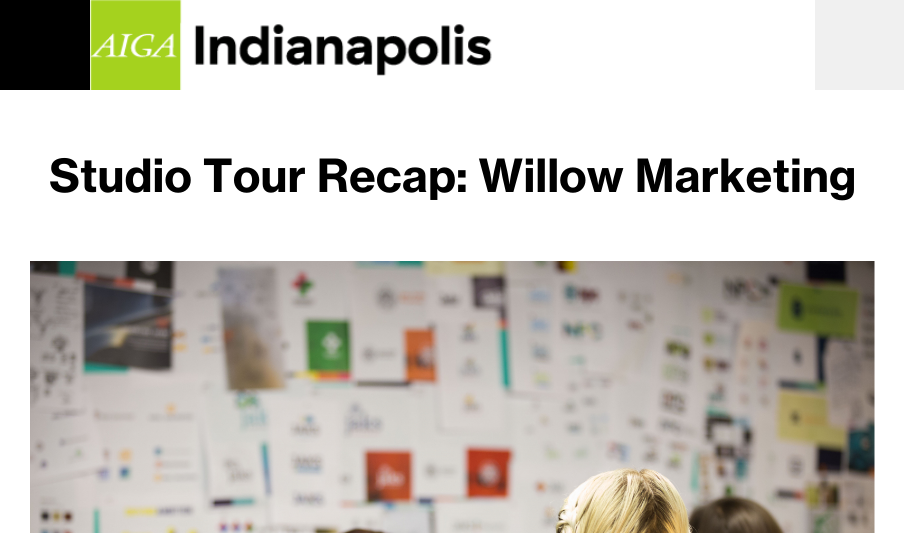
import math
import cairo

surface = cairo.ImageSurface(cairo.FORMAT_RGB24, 904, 533)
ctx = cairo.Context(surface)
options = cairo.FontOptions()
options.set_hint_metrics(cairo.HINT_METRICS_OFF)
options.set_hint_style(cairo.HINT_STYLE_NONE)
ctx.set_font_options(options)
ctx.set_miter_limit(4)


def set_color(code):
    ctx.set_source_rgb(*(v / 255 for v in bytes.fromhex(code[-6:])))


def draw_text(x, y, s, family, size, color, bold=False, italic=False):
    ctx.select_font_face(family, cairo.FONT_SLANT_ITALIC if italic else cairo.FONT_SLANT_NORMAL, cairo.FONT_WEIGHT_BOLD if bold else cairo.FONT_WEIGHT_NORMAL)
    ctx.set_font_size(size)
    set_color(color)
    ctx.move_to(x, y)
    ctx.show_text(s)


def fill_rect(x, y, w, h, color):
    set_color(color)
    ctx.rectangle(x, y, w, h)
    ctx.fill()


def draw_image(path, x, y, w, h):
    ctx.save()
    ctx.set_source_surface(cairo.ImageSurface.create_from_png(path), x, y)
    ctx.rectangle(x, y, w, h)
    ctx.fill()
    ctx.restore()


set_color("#ffffff")
ctx.paint()
fill_rect(0, 0, 90, 90, "#000000")
draw_image("assets/img1.png", 90, 0, 402, 90)
fill_rect(815, 0, 89, 90, "#f0f0f0")
draw_text(49, 192, "Studio Tour Recap: Willow Marketing", "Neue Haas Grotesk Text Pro", 45, "#000000", bold=True)
draw_image("assets/img2.png", 30, 261, 845, 272)
surface.write_to_png("output.png")
